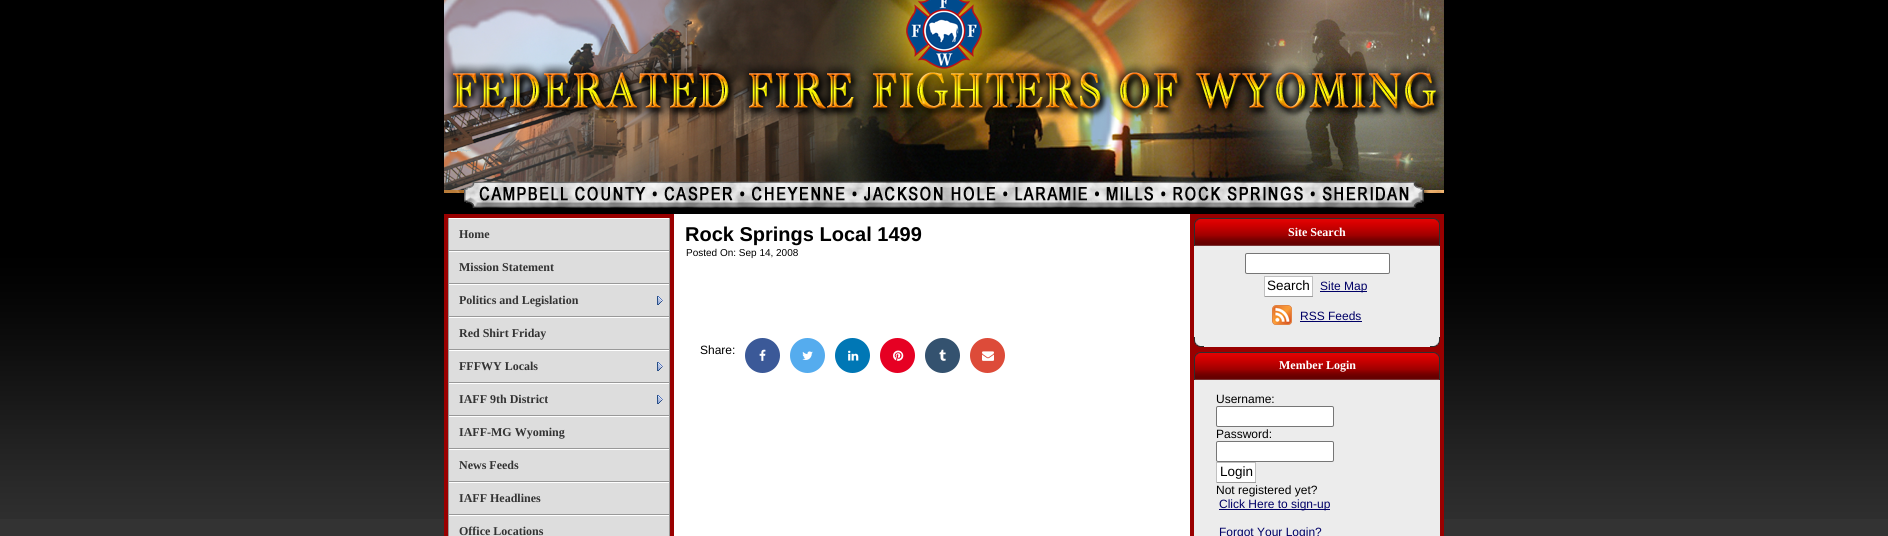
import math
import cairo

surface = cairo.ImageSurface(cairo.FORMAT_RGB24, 1888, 536)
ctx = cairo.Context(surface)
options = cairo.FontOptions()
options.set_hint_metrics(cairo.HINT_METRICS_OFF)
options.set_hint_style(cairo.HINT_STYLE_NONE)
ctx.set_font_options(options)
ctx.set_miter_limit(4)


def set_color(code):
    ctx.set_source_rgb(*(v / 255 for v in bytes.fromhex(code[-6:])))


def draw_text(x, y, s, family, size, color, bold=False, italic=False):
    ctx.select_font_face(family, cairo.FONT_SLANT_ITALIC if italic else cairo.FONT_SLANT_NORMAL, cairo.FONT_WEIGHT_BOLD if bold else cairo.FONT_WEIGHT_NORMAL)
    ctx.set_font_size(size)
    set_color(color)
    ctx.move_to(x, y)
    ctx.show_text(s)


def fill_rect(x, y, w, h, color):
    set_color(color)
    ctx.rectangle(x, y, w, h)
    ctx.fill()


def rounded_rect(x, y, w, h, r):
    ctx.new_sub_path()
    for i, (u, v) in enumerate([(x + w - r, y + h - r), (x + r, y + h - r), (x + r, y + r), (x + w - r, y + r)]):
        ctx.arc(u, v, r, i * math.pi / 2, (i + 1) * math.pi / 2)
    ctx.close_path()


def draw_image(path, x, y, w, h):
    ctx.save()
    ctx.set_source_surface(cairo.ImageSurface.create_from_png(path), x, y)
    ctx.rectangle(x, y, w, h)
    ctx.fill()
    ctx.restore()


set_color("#333333")
ctx.paint()
draw_image("assets/img1.png", 0, 0, 1888, 519)
draw_image("assets/img2.png", 444, 0, 1000, 208)
fill_rect(674, 214, 516, 322, "#ffffff")
fill_rect(444, 214, 230, 322, "#990000")
fill_rect(449, 219, 220, 317, "#dddddd")
fill_rect(669, 218, 1, 318, "#999999")
fill_rect(448, 218, 1, 318, "#999999")
fill_rect(449, 218, 220, 1, "#ffffff")
fill_rect(449, 250, 220, 1, "#999999")
draw_text(459, 238, "Home", "Liberation Serif", 12, "#333333", bold=True)
fill_rect(449, 251, 220, 1, "#ffffff")
fill_rect(449, 283, 220, 1, "#999999")
draw_text(459, 271, "Mission Statement", "Liberation Serif", 12, "#333333", bold=True)
draw_image("assets/img3.png", 657, 296, 6, 9)
fill_rect(449, 284, 220, 1, "#ffffff")
fill_rect(449, 316, 220, 1, "#999999")
draw_text(459, 304, "Politics and Legislation", "Liberation Serif", 12, "#333333", bold=True)
fill_rect(449, 317, 220, 1, "#ffffff")
fill_rect(449, 349, 220, 1, "#999999")
draw_text(459, 337, "Red Shirt Friday", "Liberation Serif", 12, "#333333", bold=True)
draw_image("assets/img3.png", 657, 362, 6, 9)
fill_rect(449, 350, 220, 1, "#ffffff")
fill_rect(449, 382, 220, 1, "#999999")
draw_text(459, 370, "FFFWY Locals", "Liberation Serif", 12, "#333333", bold=True)
draw_image("assets/img3.png", 657, 395, 6, 9)
fill_rect(449, 383, 220, 1, "#ffffff")
fill_rect(449, 415, 220, 1, "#999999")
draw_text(459, 403, "IAFF 9th District", "Liberation Serif", 12, "#333333", bold=True)
fill_rect(449, 416, 220, 1, "#ffffff")
fill_rect(449, 448, 220, 1, "#999999")
draw_text(459, 436, "IAFF-MG Wyoming", "Liberation Serif", 12, "#333333", bold=True)
fill_rect(449, 449, 220, 1, "#ffffff")
fill_rect(449, 481, 220, 1, "#999999")
draw_text(459, 469, "News Feeds", "Liberation Serif", 12, "#333333", bold=True)
fill_rect(449, 482, 220, 1, "#ffffff")
fill_rect(449, 514, 220, 1, "#999999")
draw_text(459, 502, "IAFF Headlines", "Liberation Serif", 12, "#333333", bold=True)
fill_rect(449, 515, 220, 1, "#ffffff")
draw_text(459, 535, "Office Locations", "Liberation Serif", 12, "#333333", bold=True)
draw_text(685, 241, "Rock Springs Local 1499", "Liberation Sans", 20, "#000000", bold=True)
draw_text(686, 256, "Posted On: Sep 14, 2008", "Liberation Sans", 10, "#000000")
draw_text(700, 354, "Share:", "Liberation Sans", 12, "#000000")
set_color("#3b5998")
ctx.new_path()
ctx.arc(762.5, 355.5, 17.5, 0, 2 * math.pi)
ctx.fill()
draw_image("assets/img4.png", 759, 349, 7, 12)
set_color("#55acee")
ctx.arc(807.5, 355.5, 17.5, 0, 2 * math.pi)
ctx.fill()
draw_image("assets/img5.png", 802, 351, 11, 9)
set_color("#0077b5")
ctx.arc(852.5, 355.5, 17.5, 0, 2 * math.pi)
ctx.fill()
draw_image("assets/img6.png", 848, 350, 11, 11)
set_color("#e60023")
ctx.arc(897.5, 355.5, 17.5, 0, 2 * math.pi)
ctx.fill()
draw_image("assets/img7.png", 893, 350, 11, 11)
set_color("#34526f")
ctx.arc(942.5, 355.5, 17.5, 0, 2 * math.pi)
ctx.fill()
draw_image("assets/img8.png", 939, 349, 7, 12)
set_color("#dd4b39")
ctx.arc(987.5, 355.5, 17.5, 0, 2 * math.pi)
ctx.fill()
draw_image("assets/img9.png", 982, 351, 12, 10)
fill_rect(1190, 214, 254, 322, "#990000")
draw_image("assets/img10.png", 1194, 218, 10, 28)
draw_image("assets/img11.png", 1204, 218, 226, 28)
draw_text(1288, 236, "Site Search", "Liberation Serif", 12, "#ffffff", bold=True)
draw_image("assets/img12.png", 1430, 218, 10, 28)
fill_rect(1194, 246, 246, 91, "#ececec")
set_color("#ffffff")
rounded_rect(1245.5, 253.5, 144, 20, 1.5)
ctx.fill_preserve()
set_color("#767676")
ctx.set_line_width(1)
ctx.stroke()
fill_rect(1265, 277, 47, 19, "#ffffff")
fill_rect(1264, 276, 49, 1, "#c0c0c0")
fill_rect(1312, 276, 1, 21, "#c0c0c0")
fill_rect(1264, 296, 49, 1, "#9b9b9b")
fill_rect(1264, 276, 1, 21, "#c0c0c0")
draw_text(1267, 290, "Search", "Liberation Sans", 13.5, "#000000")
fill_rect(1320, 291, 47, 1, "#000066")
draw_text(1320, 290, "Site Map", "Liberation Sans", 12, "#000066")
draw_image("assets/img13.png", 1272, 305, 20, 20)
draw_text(1300, 320, "RSS Feeds", "Liberation Sans", 12, "#000066")
fill_rect(1300, 321, 62, 1, "#000066")
draw_image("assets/img14.png", 1194, 337, 10, 10)
fill_rect(1204, 337, 226, 10, "#ececec")
draw_image("assets/img15.png", 1430, 337, 10, 10)
draw_image("assets/img10.png", 1194, 352, 10, 28)
draw_image("assets/img11.png", 1204, 352, 226, 28)
draw_text(1279, 369, "Member Login", "Liberation Serif", 12, "#ffffff", bold=True)
draw_image("assets/img12.png", 1430, 352, 10, 28)
fill_rect(1194, 380, 246, 156, "#ececec")
draw_text(1216, 403, "Username:", "Liberation Sans", 12, "#000000")
set_color("#ffffff")
rounded_rect(1216.5, 406.5, 117, 20, 1.5)
ctx.fill_preserve()
set_color("#767676")
ctx.stroke()
draw_text(1216, 438, "Password:", "Liberation Sans", 12, "#000000")
set_color("#ffffff")
rounded_rect(1216.5, 441.5, 117, 20, 1.5)
ctx.fill_preserve()
set_color("#767676")
ctx.stroke()
fill_rect(1217, 463, 38, 19, "#ffffff")
fill_rect(1216, 462, 40, 1, "#c0c0c0")
fill_rect(1255, 462, 1, 21, "#c0c0c0")
fill_rect(1216, 482, 40, 1, "#9b9b9b")
fill_rect(1216, 462, 1, 21, "#c0c0c0")
draw_text(1220, 476, "Login", "Liberation Sans", 13.5, "#000000")
draw_text(1216, 494, "Not registered yet?", "Liberation Sans", 12, "#000000")
fill_rect(1219, 509, 111, 1, "#000066")
draw_text(1219, 508, "Click Here to sign-up", "Liberation Sans", 12, "#000066")
draw_text(1219, 536, "Forgot Your Login?", "Liberation Sans", 12, "#000066")
surface.write_to_png("output.png")
